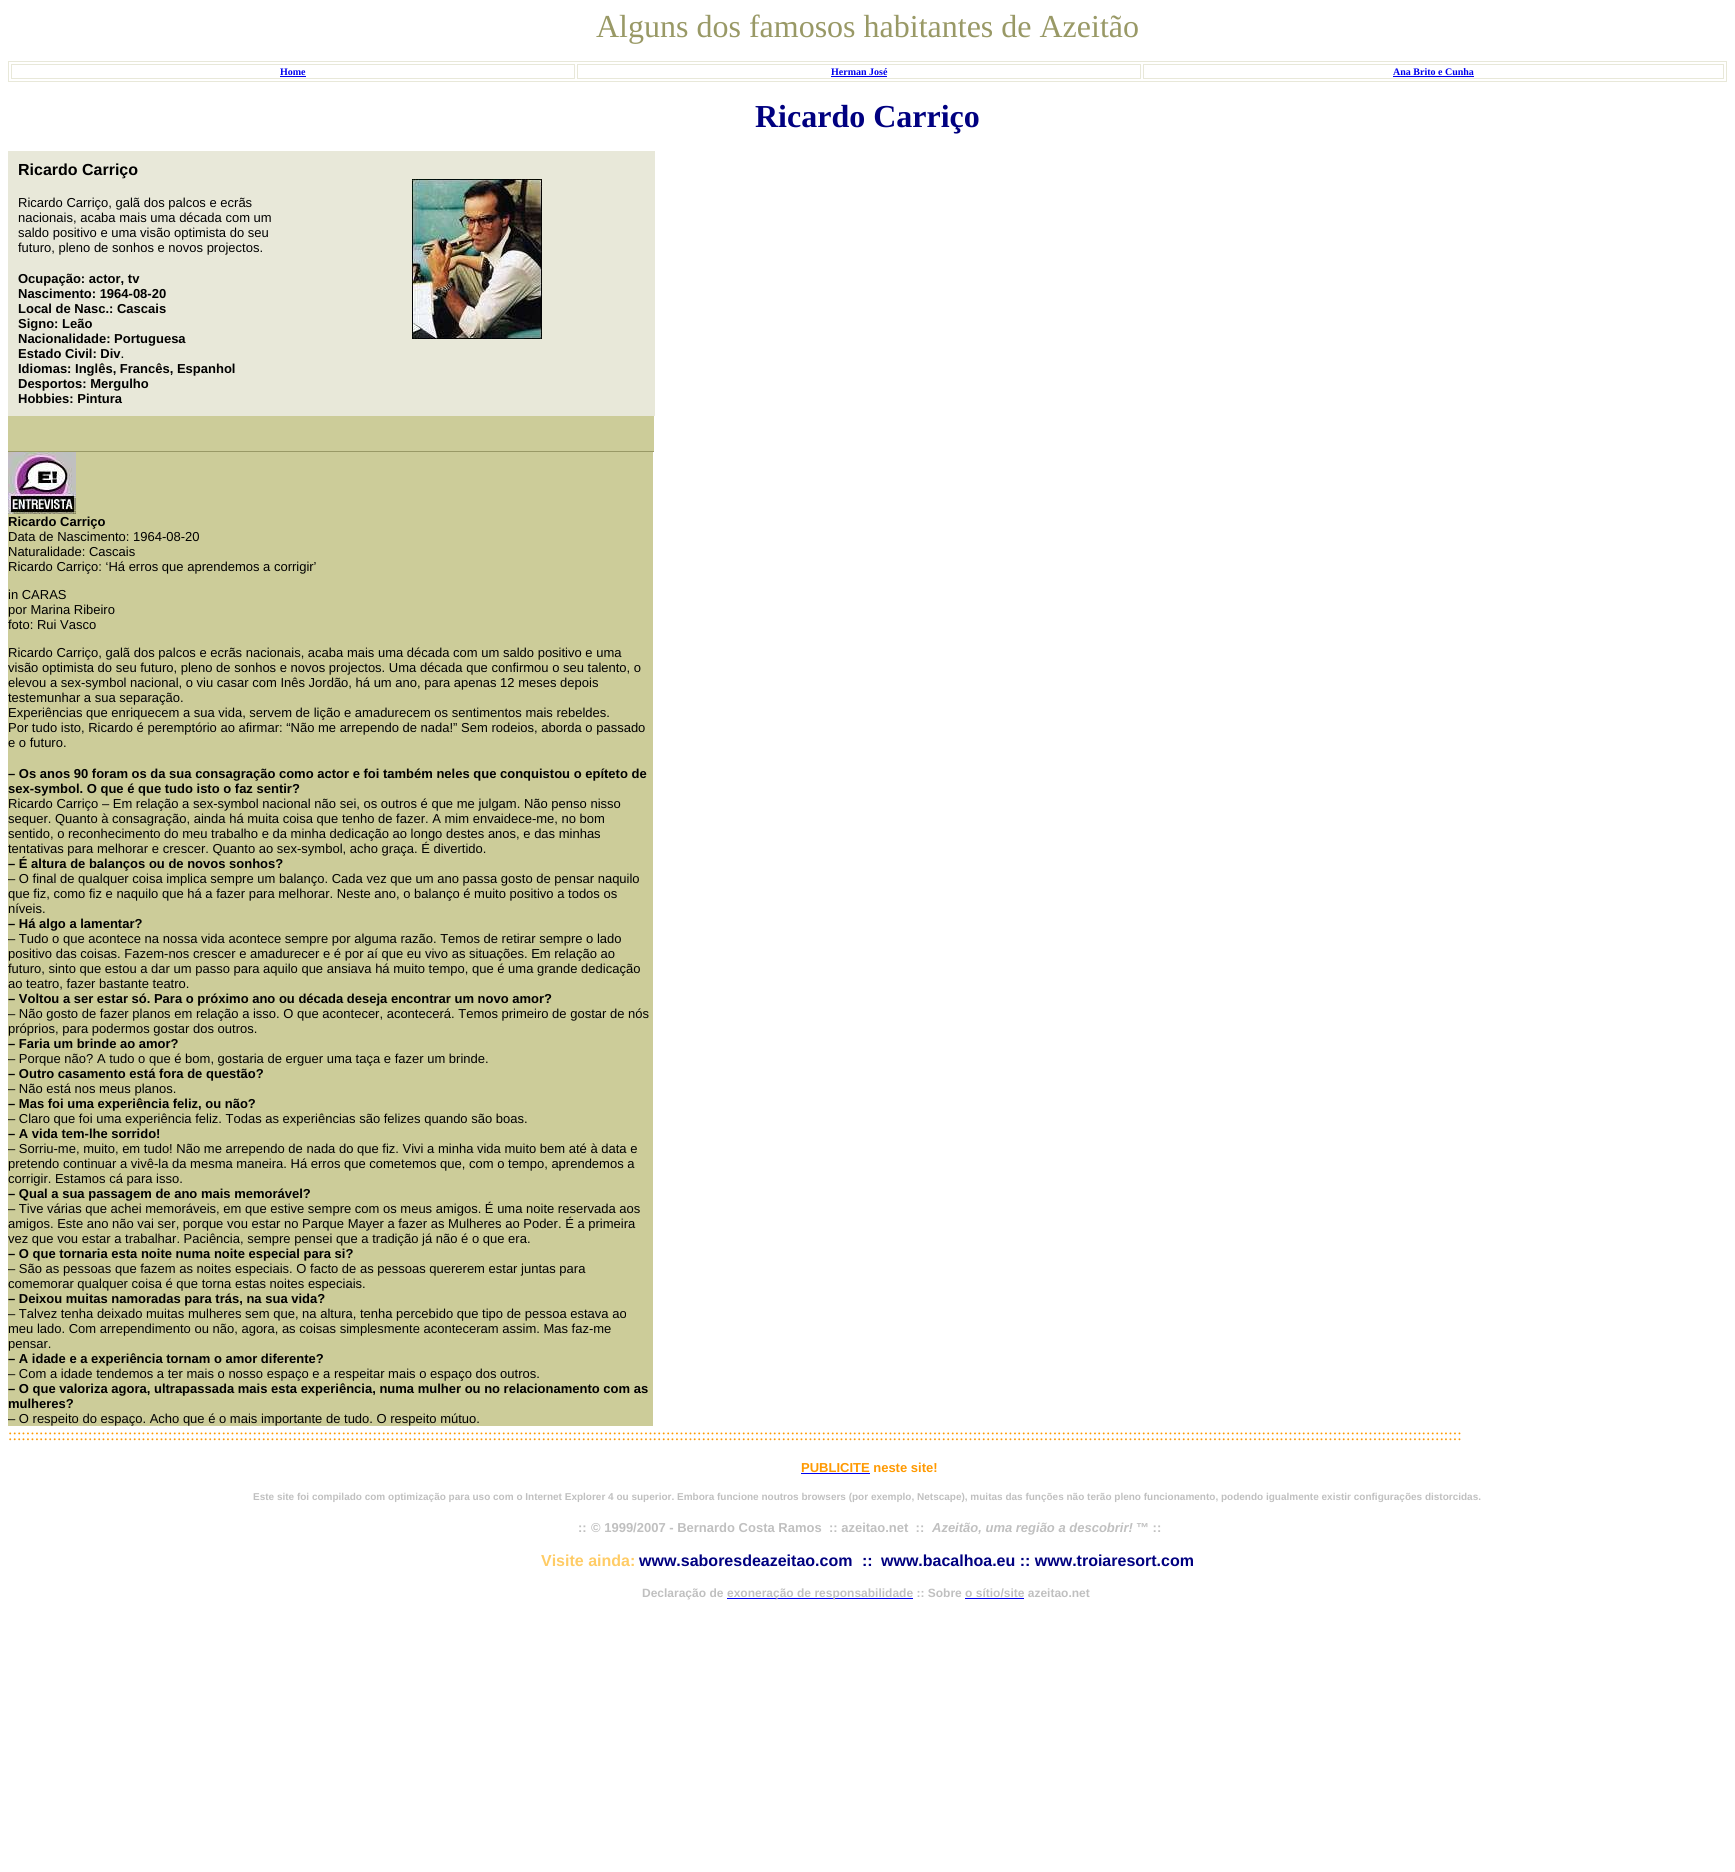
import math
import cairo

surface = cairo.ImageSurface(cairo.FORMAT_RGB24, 1735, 1872)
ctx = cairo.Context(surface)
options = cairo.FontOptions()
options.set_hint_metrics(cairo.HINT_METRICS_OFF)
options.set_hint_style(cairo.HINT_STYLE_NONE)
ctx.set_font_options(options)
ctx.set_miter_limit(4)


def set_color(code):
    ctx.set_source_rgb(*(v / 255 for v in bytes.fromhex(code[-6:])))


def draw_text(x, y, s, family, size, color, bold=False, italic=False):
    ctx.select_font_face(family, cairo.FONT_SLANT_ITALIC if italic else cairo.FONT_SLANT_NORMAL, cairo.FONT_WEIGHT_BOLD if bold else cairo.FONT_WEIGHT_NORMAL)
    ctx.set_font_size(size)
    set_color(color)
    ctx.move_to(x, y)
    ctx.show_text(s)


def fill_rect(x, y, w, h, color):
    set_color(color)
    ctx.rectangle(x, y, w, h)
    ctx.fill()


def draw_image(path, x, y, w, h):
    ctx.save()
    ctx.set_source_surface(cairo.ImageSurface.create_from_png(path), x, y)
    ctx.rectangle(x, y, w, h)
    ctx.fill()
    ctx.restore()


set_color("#ffffff")
ctx.paint()
draw_text(596, 37, "Alguns dos famosos habitantes de Azeitão", "Liberation Serif", 32, "#999966")
ctx.rectangle(8.5, 61.5, 1718, 20)
set_color("#e8e8d9")
ctx.set_line_width(1)
ctx.stroke()
ctx.rectangle(11.5, 64.5, 563, 14)
ctx.stroke()
draw_text(280, 75, "Home", "Liberation Serif", 10, "#0000ee", bold=True)
fill_rect(280, 76, 26, 1, "#0000ee")
ctx.rectangle(577.5, 64.5, 563, 14)
set_color("#e8e8d9")
ctx.stroke()
draw_text(831, 75, "Herman José", "Liberation Serif", 10, "#0000ee", bold=True)
fill_rect(831, 76, 56, 1, "#0000ee")
ctx.rectangle(1143.5, 64.5, 580, 14)
set_color("#e8e8d9")
ctx.stroke()
draw_text(1393, 75, "Ana Brito e Cunha", "Liberation Serif", 10, "#0000ee", bold=True)
fill_rect(1393, 76, 81, 1, "#0000ee")
draw_text(755, 127, "Ricardo Carriço", "Liberation Serif", 32, "#000080", bold=True)
fill_rect(8, 151, 647, 265, "#e8e8d9")
draw_text(18, 175, "Ricardo Carriço", "Liberation Sans", 16, "#000000", bold=True)
draw_text(18, 207, "Ricardo Carriço, galã dos palcos e ecrãs", "Liberation Sans", 13, "#000000")
draw_text(18, 222, "nacionais, acaba mais uma década com um", "Liberation Sans", 13, "#000000")
draw_text(18, 237, "saldo positivo e uma visão optimista do seu", "Liberation Sans", 13, "#000000")
draw_text(18, 252, "futuro, pleno de sonhos e novos projectos.", "Liberation Sans", 13, "#000000")
draw_text(18, 283, "Ocupação: actor, tv", "Liberation Sans", 13, "#000000", bold=True)
draw_text(18, 298, "Nascimento: 1964-08-20", "Liberation Sans", 13, "#000000", bold=True)
draw_text(18, 313, "Local de Nasc.: Cascais", "Liberation Sans", 13, "#000000", bold=True)
draw_text(18, 328, "Signo: Leão", "Liberation Sans", 13, "#000000", bold=True)
draw_text(18, 343, "Nacionalidade: Portuguesa", "Liberation Sans", 13, "#000000", bold=True)
draw_text(18, 358, "Estado Civil: Div", "Liberation Sans", 13, "#000000", bold=True)
draw_text(121, 358, ".", "Liberation Sans", 10, "#000000", bold=True)
draw_text(18, 373, "Idiomas: Inglês, Francês, Espanhol", "Liberation Sans", 13, "#000000", bold=True)
draw_text(18, 388, "Desportos: Mergulho", "Liberation Sans", 13, "#000000", bold=True)
draw_text(18, 403, "Hobbies: Pintura", "Liberation Sans", 13, "#000000", bold=True)
draw_image("assets/img1.png", 412, 179, 130, 160)
fill_rect(8, 416, 646, 35, "#cccc99")
fill_rect(8, 451, 646, 1, "#999966")
fill_rect(8, 452, 645, 974, "#cccc99")
draw_image("assets/img2.png", 8, 452, 68, 62)
draw_text(8, 526, "Ricardo Carriço", "Liberation Sans", 13, "#000000", bold=True)
draw_text(8, 541, "Data de Nascimento: 1964-08-20", "Liberation Sans", 13, "#000000")
draw_text(8, 556, "Naturalidade: Cascais", "Liberation Sans", 13, "#000000")
draw_text(8, 571, "Ricardo Carriço: ‘Há erros que aprendemos a corrigir’", "Liberation Sans", 13, "#000000")
draw_text(8, 599, "in CARAS", "Liberation Sans", 13, "#000000")
draw_text(8, 614, "por Marina Ribeiro", "Liberation Sans", 13, "#000000")
draw_text(8, 629, "foto: Rui Vasco", "Liberation Sans", 13, "#000000")
draw_text(8, 657, "Ricardo Carriço, galã dos palcos e ecrãs nacionais, acaba mais uma década com um saldo positivo e uma", "Liberation Sans", 13, "#000000")
draw_text(8, 672, "visão optimista do seu futuro, pleno de sonhos e novos projectos. Uma década que confirmou o seu talento, o", "Liberation Sans", 13, "#000000")
draw_text(8, 687, "elevou a sex-symbol nacional, o viu casar com Inês Jordão, há um ano, para apenas 12 meses depois", "Liberation Sans", 13, "#000000")
draw_text(8, 702, "testemunhar a sua separação.", "Liberation Sans", 13, "#000000")
draw_text(8, 717, "Experiências que enriquecem a sua vida, servem de lição e amadurecem os sentimentos mais rebeldes.", "Liberation Sans", 13, "#000000")
draw_text(8, 732, "Por tudo isto, Ricardo é peremptório ao afirmar: “Não me arrependo de nada!” Sem rodeios, aborda o passado", "Liberation Sans", 13, "#000000")
draw_text(8, 747, "e o futuro.", "Liberation Sans", 13, "#000000")
draw_text(8, 778, "– Os anos 90 foram os da sua consagração como actor e foi também neles que conquistou o epíteto de", "Liberation Sans", 13, "#000000", bold=True)
draw_text(8, 793, "sex-symbol. O que é que tudo isto o faz sentir?", "Liberation Sans", 13, "#000000", bold=True)
draw_text(8, 808, "Ricardo Carriço – Em relação a sex-symbol nacional não sei, os outros é que me julgam. Não penso nisso", "Liberation Sans", 13, "#000000")
draw_text(8, 823, "sequer. Quanto à consagração, ainda há muita coisa que tenho de fazer. A mim envaidece-me, no bom", "Liberation Sans", 13, "#000000")
draw_text(8, 838, "sentido, o reconhecimento do meu trabalho e da minha dedicação ao longo destes anos, e das minhas", "Liberation Sans", 13, "#000000")
draw_text(8, 853, "tentativas para melhorar e crescer. Quanto ao sex-symbol, acho graça. É divertido.", "Liberation Sans", 13, "#000000")
draw_text(8, 868, "– É altura de balanços ou de novos sonhos?", "Liberation Sans", 13, "#000000", bold=True)
draw_text(8, 883, "– O final de qualquer coisa implica sempre um balanço. Cada vez que um ano passa gosto de pensar naquilo", "Liberation Sans", 13, "#000000")
draw_text(8, 898, "que fiz, como fiz e naquilo que há a fazer para melhorar. Neste ano, o balanço é muito positivo a todos os", "Liberation Sans", 13, "#000000")
draw_text(8, 913, "níveis.", "Liberation Sans", 13, "#000000")
draw_text(8, 928, "– Há algo a lamentar?", "Liberation Sans", 13, "#000000", bold=True)
draw_text(8, 943, "– Tudo o que acontece na nossa vida acontece sempre por alguma razão. Temos de retirar sempre o lado", "Liberation Sans", 13, "#000000")
draw_text(8, 958, "positivo das coisas. Fazem-nos crescer e amadurecer e é por aí que eu vivo as situações. Em relação ao", "Liberation Sans", 13, "#000000")
draw_text(8, 973, "futuro, sinto que estou a dar um passo para aquilo que ansiava há muito tempo, que é uma grande dedicação", "Liberation Sans", 13, "#000000")
draw_text(8, 988, "ao teatro, fazer bastante teatro.", "Liberation Sans", 13, "#000000")
draw_text(8, 1003, "– Voltou a ser estar só. Para o próximo ano ou década deseja encontrar um novo amor?", "Liberation Sans", 13, "#000000", bold=True)
draw_text(8, 1018, "– Não gosto de fazer planos em relação a isso. O que acontecer, acontecerá. Temos primeiro de gostar de nós", "Liberation Sans", 13, "#000000")
draw_text(8, 1033, "próprios, para podermos gostar dos outros.", "Liberation Sans", 13, "#000000")
draw_text(8, 1048, "– Faria um brinde ao amor?", "Liberation Sans", 13, "#000000", bold=True)
draw_text(8, 1063, "– Porque não? A tudo o que é bom, gostaria de erguer uma taça e fazer um brinde.", "Liberation Sans", 13, "#000000")
draw_text(8, 1078, "– Outro casamento está fora de questão?", "Liberation Sans", 13, "#000000", bold=True)
draw_text(8, 1093, "– Não está nos meus planos.", "Liberation Sans", 13, "#000000")
draw_text(8, 1108, "– Mas foi uma experiência feliz, ou não?", "Liberation Sans", 13, "#000000", bold=True)
draw_text(8, 1123, "– Claro que foi uma experiência feliz. Todas as experiências são felizes quando são boas.", "Liberation Sans", 13, "#000000")
draw_text(8, 1138, "– A vida tem-lhe sorrido!", "Liberation Sans", 13, "#000000", bold=True)
draw_text(8, 1153, "– Sorriu-me, muito, em tudo! Não me arrependo de nada do que fiz. Vivi a minha vida muito bem até à data e", "Liberation Sans", 13, "#000000")
draw_text(8, 1168, "pretendo continuar a vivê-la da mesma maneira. Há erros que cometemos que, com o tempo, aprendemos a", "Liberation Sans", 13, "#000000")
draw_text(8, 1183, "corrigir. Estamos cá para isso.", "Liberation Sans", 13, "#000000")
draw_text(8, 1198, "– Qual a sua passagem de ano mais memorável?", "Liberation Sans", 13, "#000000", bold=True)
draw_text(8, 1213, "– Tive várias que achei memoráveis, em que estive sempre com os meus amigos. É uma noite reservada aos", "Liberation Sans", 13, "#000000")
draw_text(8, 1228, "amigos. Este ano não vai ser, porque vou estar no Parque Mayer a fazer as Mulheres ao Poder. É a primeira", "Liberation Sans", 13, "#000000")
draw_text(8, 1243, "vez que vou estar a trabalhar. Paciência, sempre pensei que a tradição já não é o que era.", "Liberation Sans", 13, "#000000")
draw_text(8, 1258, "– O que tornaria esta noite numa noite especial para si?", "Liberation Sans", 13, "#000000", bold=True)
draw_text(8, 1273, "– São as pessoas que fazem as noites especiais. O facto de as pessoas quererem estar juntas para", "Liberation Sans", 13, "#000000")
draw_text(8, 1288, "comemorar qualquer coisa é que torna estas noites especiais.", "Liberation Sans", 13, "#000000")
draw_text(8, 1303, "– Deixou muitas namoradas para trás, na sua vida?", "Liberation Sans", 13, "#000000", bold=True)
draw_text(8, 1318, "– Talvez tenha deixado muitas mulheres sem que, na altura, tenha percebido que tipo de pessoa estava ao", "Liberation Sans", 13, "#000000")
draw_text(8, 1333, "meu lado. Com arrependimento ou não, agora, as coisas simplesmente aconteceram assim. Mas faz-me", "Liberation Sans", 13, "#000000")
draw_text(8, 1348, "pensar.", "Liberation Sans", 13, "#000000")
draw_text(8, 1363, "– A idade e a experiência tornam o amor diferente?", "Liberation Sans", 13, "#000000", bold=True)
draw_text(8, 1378, "– Com a idade tendemos a ter mais o nosso espaço e a respeitar mais o espaço dos outros.", "Liberation Sans", 13, "#000000")
draw_text(8, 1393, "– O que valoriza agora, ultrapassada mais esta experiência, numa mulher ou no relacionamento com as", "Liberation Sans", 13, "#000000", bold=True)
draw_text(8, 1408, "mulheres?", "Liberation Sans", 13, "#000000", bold=True)
draw_text(8, 1423, "– O respeito do espaço. Acho que é o mais importante de tudo. O respeito mútuo.", "Liberation Sans", 13, "#000000")
draw_text(8, 1440, ":::::::::::::::::::::::::::::::::::::::::::::::::::::::::::::::::::::::::::::::::::::::::::::::::::::::::::::::::::::::::::::::::::::::::::::::::::::::::::::::::::::::::::::::::::::::::::::::::::::::::::::::::::::::::::::::::::::::::::::::::::::::::::::::::::::::::::::::::::::::::::::::::::::::::::::::::::::::::::::::::::::::", "Liberation Serif", 16, "#ff9900")
draw_text(801, 1472, "PUBLICITE neste site!", "Liberation Sans", 13, "#ff9900", bold=True)
fill_rect(801, 1473, 69, 1, "#0000ee")
draw_text(253, 1500, "Este site foi compilado com optimização para uso com o Internet Explorer 4 ou superior. Embora funcione noutros browsers (por exemplo, Netscape), muitas das funções não terão pleno funcionamento, podendo igualmente existir configurações distorcidas.", "Liberation Sans", 10, "#c0c0c0", bold=True)
draw_text(578, 1532, "::", "Liberation Sans", 13, "#c0c0c0", bold=True)
draw_text(591, 1532, "© 1999/2007 - Bernardo Costa Ramos  :: azeitao.net  ::", "Liberation Sans", 13, "#c0c0c0", bold=True)
draw_text(932, 1532, "Azeitão, uma região a descobrir!", "Liberation Sans", 13, "#c0c0c0", bold=True, italic=True)
draw_text(1136, 1532, "™ ::", "Liberation Sans", 13, "#c0c0c0", bold=True)
draw_text(541, 1566, "Visite ainda:", "Liberation Sans", 16, "#ffcc66", bold=True)
draw_text(639, 1566, "www.saboresdeazeitao.com", "Liberation Sans", 16, "#000080", bold=True)
draw_text(862, 1566, "::", "Liberation Sans", 16, "#000080", bold=True)
draw_text(881, 1566, "www.bacalhoa.eu :: www.troiaresort.com", "Liberation Sans", 16, "#000080", bold=True)
draw_text(642, 1597, "Declaração de", "Liberation Sans", 12, "#c0c0c0", bold=True)
fill_rect(727, 1598, 186, 1, "#0000ee")
draw_text(727, 1597, "exoneração de responsabilidade :: Sobre o sítio/site azeitao.net", "Liberation Sans", 12, "#c0c0c0", bold=True)
fill_rect(965, 1598, 59, 1, "#0000ee")
surface.write_to_png("output.png")
